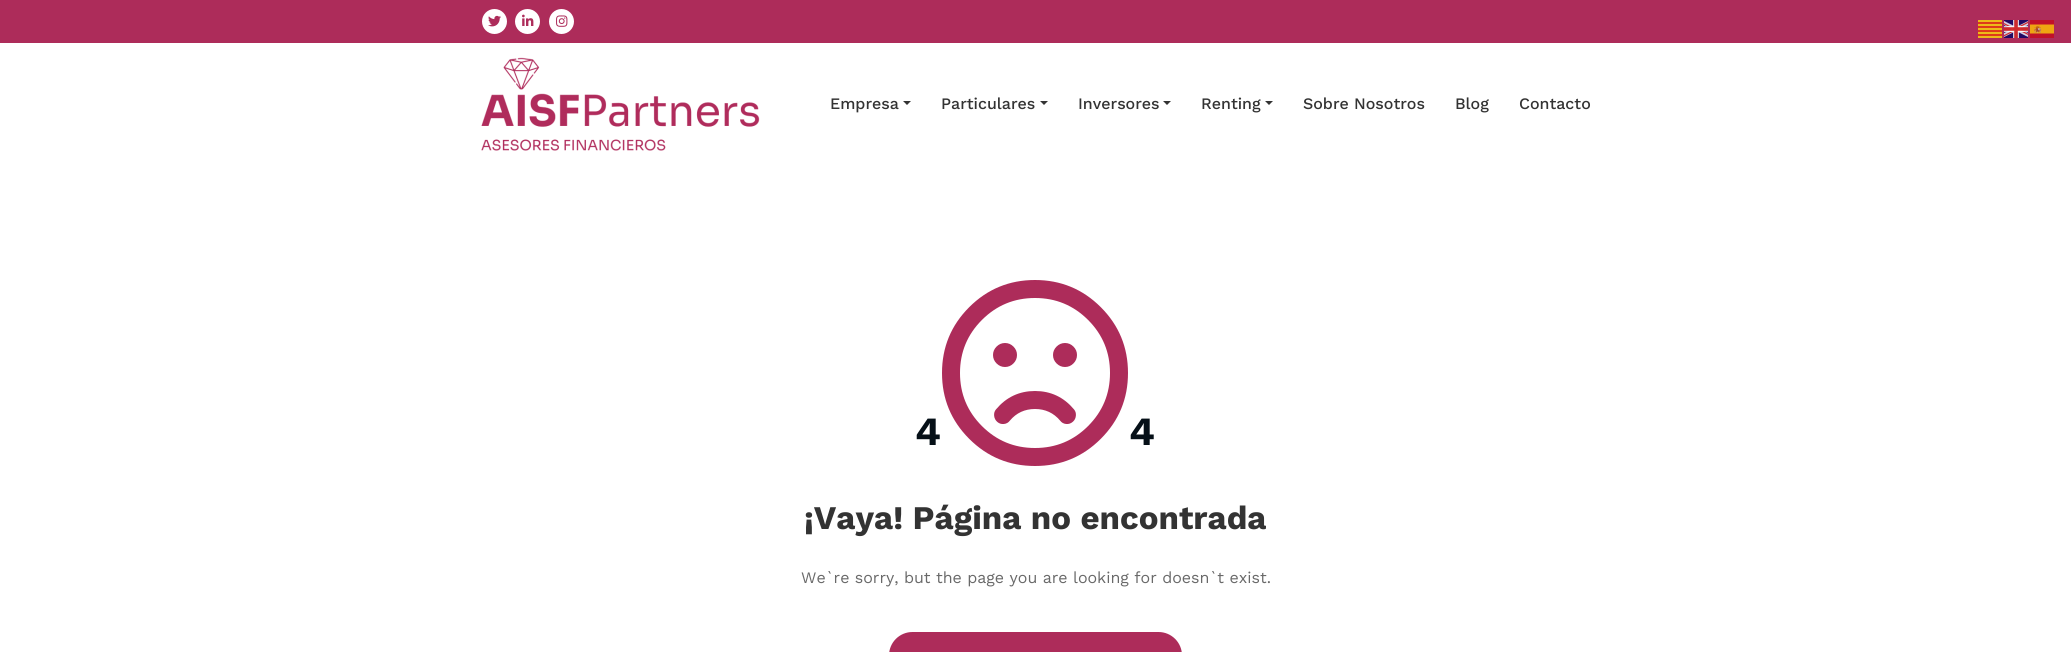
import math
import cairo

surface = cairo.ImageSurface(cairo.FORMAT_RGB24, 2071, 652)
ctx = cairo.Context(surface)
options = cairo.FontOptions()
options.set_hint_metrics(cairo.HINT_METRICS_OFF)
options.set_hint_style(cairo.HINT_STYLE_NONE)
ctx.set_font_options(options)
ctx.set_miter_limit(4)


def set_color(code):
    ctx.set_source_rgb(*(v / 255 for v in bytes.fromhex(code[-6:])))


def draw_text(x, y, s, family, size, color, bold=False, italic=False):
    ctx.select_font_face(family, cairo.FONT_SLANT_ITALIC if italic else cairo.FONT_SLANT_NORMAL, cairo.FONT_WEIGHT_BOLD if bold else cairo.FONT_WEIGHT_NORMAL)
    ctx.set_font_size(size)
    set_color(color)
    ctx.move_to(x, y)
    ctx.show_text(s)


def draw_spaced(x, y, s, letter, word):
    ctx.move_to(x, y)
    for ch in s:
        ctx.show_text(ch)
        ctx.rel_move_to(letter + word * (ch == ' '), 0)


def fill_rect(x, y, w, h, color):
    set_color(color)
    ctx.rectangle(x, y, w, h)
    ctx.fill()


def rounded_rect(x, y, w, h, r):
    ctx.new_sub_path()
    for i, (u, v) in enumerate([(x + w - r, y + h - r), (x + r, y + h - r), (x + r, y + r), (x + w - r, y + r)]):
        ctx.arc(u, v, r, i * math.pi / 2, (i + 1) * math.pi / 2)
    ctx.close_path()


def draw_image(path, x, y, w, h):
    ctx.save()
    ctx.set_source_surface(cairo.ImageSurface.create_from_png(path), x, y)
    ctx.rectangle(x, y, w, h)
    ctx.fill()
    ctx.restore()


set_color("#ad2c5a")
ctx.paint()
set_color("#ffffff")
ctx.arc(494.5, 21.5, 12.5, 0, 2 * math.pi)
ctx.fill()
draw_image("assets/img1.png", 488, 15, 13, 12)
ctx.arc(527.5, 21.5, 12.5, 0, 2 * math.pi)
ctx.fill()
draw_image("assets/img2.png", 522, 14, 12, 12)
ctx.arc(561.5, 21.5, 12.5, 0, 2 * math.pi)
ctx.fill()
draw_image("assets/img3.png", 556, 15, 12, 12)
draw_image("assets/img4.png", 1978, 20, 24, 18)
draw_image("assets/img5.png", 2004, 20, 24, 18)
draw_image("assets/img6.png", 2030, 20, 24, 18)
fill_rect(0, 43, 2071, 609, "#ffffff")
draw_image("assets/img7.png", 481, 57, 279, 94)
draw_text(830, 109, "Empresa", "Work Sans Medium", 16, "#333333")
ctx.new_path()
ctx.move_to(903, 101)
ctx.line_to(911, 101)
ctx.line_to(907, 105)
ctx.close_path()
ctx.fill()
draw_text(941, 109, "Particulares", "Work Sans Medium", 16, "#333333")
ctx.new_path()
ctx.move_to(1040, 101)
ctx.line_to(1048, 101)
ctx.line_to(1044, 105)
ctx.close_path()
ctx.fill()
draw_text(1078, 109, "Inversores", "Work Sans Medium", 16, "#333333")
ctx.new_path()
ctx.move_to(1163, 101)
ctx.line_to(1171, 101)
ctx.line_to(1167, 105)
ctx.close_path()
ctx.fill()
draw_text(1201, 109, "Renting", "Work Sans Medium", 16, "#333333")
ctx.new_path()
ctx.move_to(1265, 101)
ctx.line_to(1273, 101)
ctx.line_to(1269, 105)
ctx.close_path()
ctx.fill()
draw_text(1303, 109, "Sobre Nosotros", "Work Sans Medium", 16, "#333333")
draw_text(1455, 109, "Blog", "Work Sans Medium", 16, "#333333")
draw_text(1519, 109, "Contacto", "Work Sans Medium", 16, "#333333")
ctx.select_font_face("Work Sans", cairo.FONT_SLANT_NORMAL, cairo.FONT_WEIGHT_BOLD)
ctx.set_font_size(40)
set_color("#061018")
draw_spaced(915, 445, "4", 1, 0)
draw_image("assets/img8.png", 942, 280, 186, 186)
draw_spaced(1129, 445, "4", 1, 0)
draw_text(804, 529, "¡Vaya! Página no encontrada", "Work Sans", 33, "#333333", bold=True)
draw_text(801, 583, "We`re sorry, but the page you are looking for doesn`t exist.", "Work Sans", 16, "#696969")
set_color("#ad2c5a")
rounded_rect(890, 633, 291, 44, 22.5)
ctx.fill_preserve()
ctx.stroke()
surface.write_to_png("output.png")
